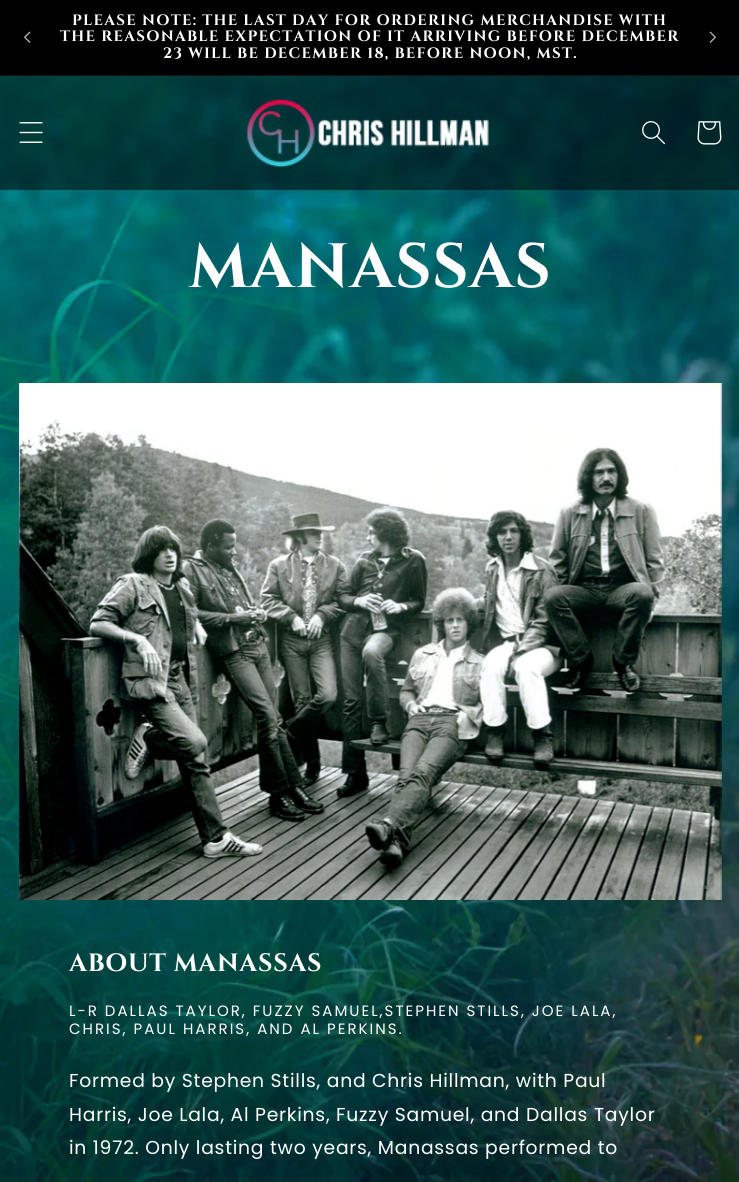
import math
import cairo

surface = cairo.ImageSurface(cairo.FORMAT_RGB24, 739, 1182)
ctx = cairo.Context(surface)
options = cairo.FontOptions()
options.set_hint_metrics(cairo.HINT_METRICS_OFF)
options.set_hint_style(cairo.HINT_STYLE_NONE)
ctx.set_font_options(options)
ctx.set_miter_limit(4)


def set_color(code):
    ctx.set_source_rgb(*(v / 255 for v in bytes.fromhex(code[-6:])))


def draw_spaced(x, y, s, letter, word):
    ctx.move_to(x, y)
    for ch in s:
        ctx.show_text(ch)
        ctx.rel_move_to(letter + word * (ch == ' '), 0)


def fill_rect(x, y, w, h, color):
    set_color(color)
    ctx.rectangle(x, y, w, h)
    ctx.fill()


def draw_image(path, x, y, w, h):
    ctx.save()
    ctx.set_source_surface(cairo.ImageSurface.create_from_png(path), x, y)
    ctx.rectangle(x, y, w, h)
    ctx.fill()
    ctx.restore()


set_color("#ffffff")
ctx.paint()
draw_image("assets/img1.png", 0, 76, 739, 1106)
fill_rect(0, 0, 739, 75, "#000000")
fill_rect(0, 75, 739, 1, "#141414")
draw_image("assets/img2.png", 24, 31, 7, 12)
ctx.select_font_face("Cinzel", cairo.FONT_SLANT_NORMAL, cairo.FONT_WEIGHT_BOLD)
ctx.set_font_size(15)
set_color("#ffffff")
draw_spaced(72, 25, "PLEASE NOTE: THE LAST DAY FOR ORDERING MERCHANDISE WITH", 1.25, 0)
draw_spaced(60, 41, "THE REASONABLE EXPECTATION OF IT ARRIVING BEFORE DECEMBER", 1.25, 0)
draw_spaced(163, 58, "23 WILL BE DECEMBER 18, BEFORE NOON, MST.", 1.25, 0)
draw_image("assets/img3.png", 709, 31, 7, 12)
ctx.set_source_rgba(0, 0, 0, 0.5)
ctx.rectangle(0, 76, 739, 114)
ctx.fill()
draw_image("assets/img4.png", 19, 122, 24, 21)
draw_image("assets/img5.png", 246, 98, 243, 70)
draw_image("assets/img6.png", 642, 121, 23, 24)
draw_image("assets/img7.png", 697, 121, 25, 24)
ctx.set_font_size(62.5)
set_color("#ffffff")
draw_spaced(189, 287, "MANASSAS", 0.75, 0)
draw_image("assets/img8.png", 19, 383, 703, 517)
ctx.set_font_size(25)
draw_spaced(69, 971, "ABOUT MANASSAS", 0.75, 0)
ctx.select_font_face("Poppins")
ctx.set_font_size(15)
draw_spaced(69, 1016, "L-R DALLAS TAYLOR, FUZZY SAMUEL,STEPHEN STILLS, JOE LALA,", 2, 0)
draw_spaced(69, 1034, "CHRIS, PAUL HARRIS, AND AL PERKINS.", 2, 0)
ctx.set_font_size(18.75)
draw_spaced(69, 1087, "Formed by Stephen Stills, and Chris Hillman, with Paul", 0.75, 0)
draw_spaced(69, 1121, "Harris, Joe Lala, Al Perkins, Fuzzy Samuel, and Dallas Taylor", 0.75, 0)
draw_spaced(69, 1154, "in 1972. Only lasting two years, Manassas performed to", 0.75, 0)
surface.write_to_png("output.png")
